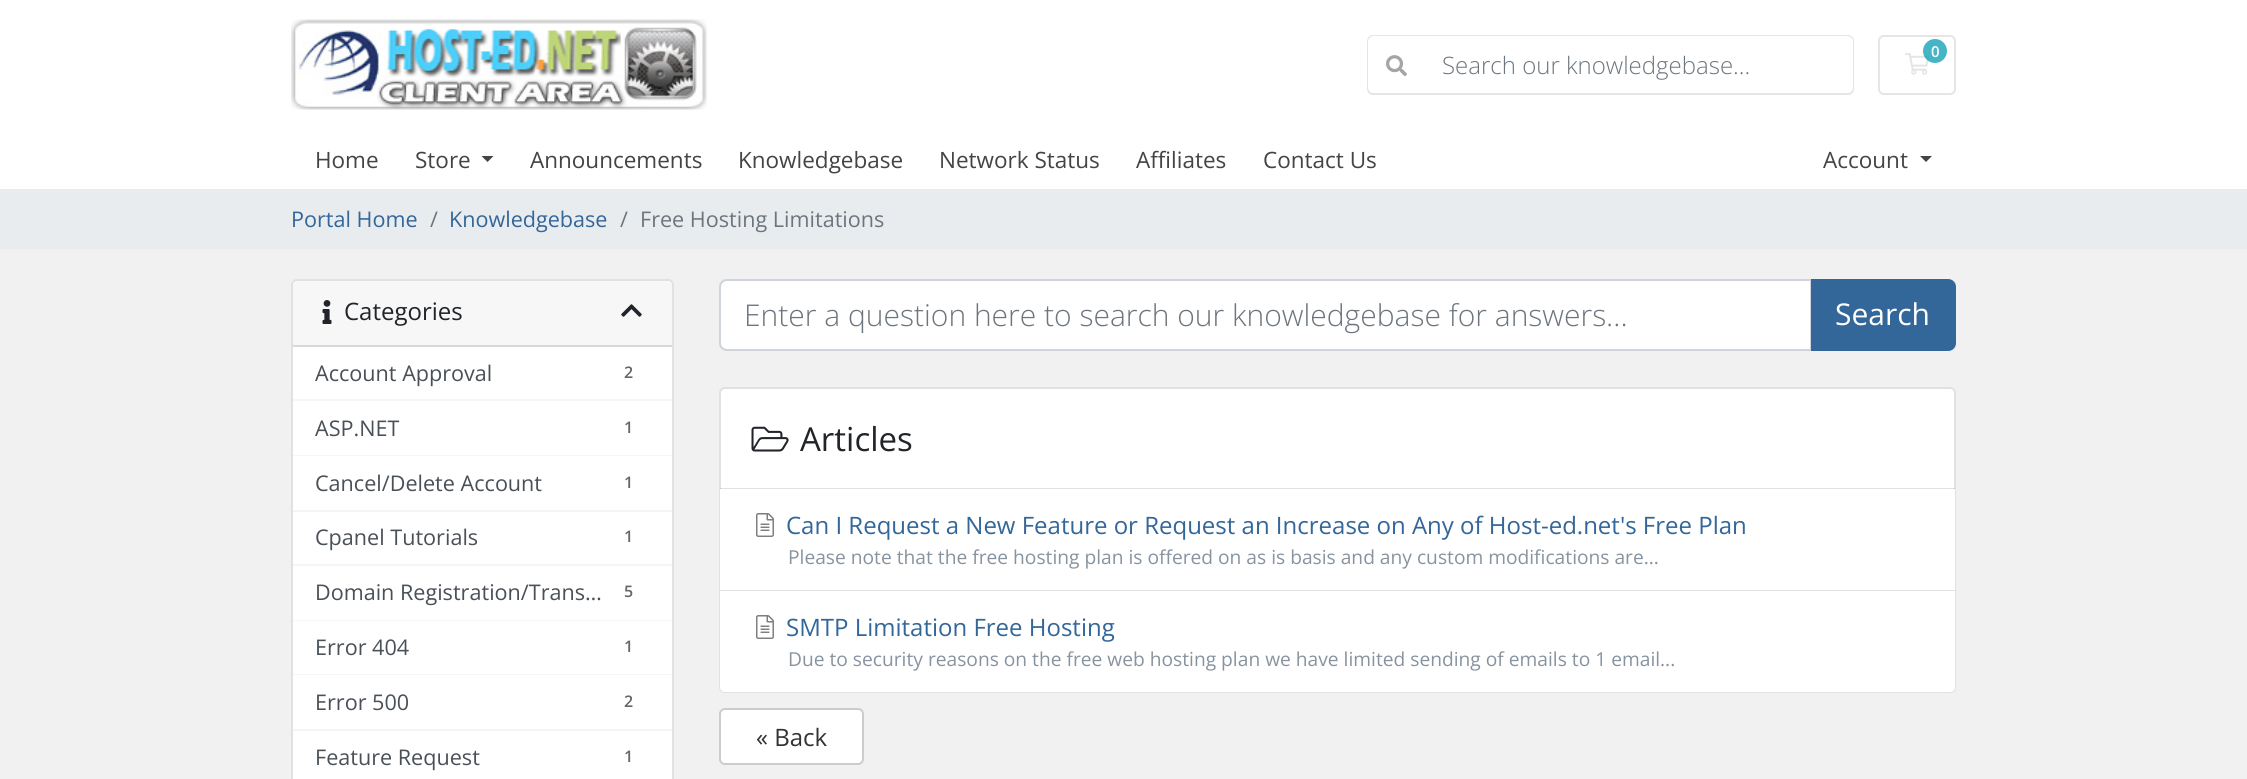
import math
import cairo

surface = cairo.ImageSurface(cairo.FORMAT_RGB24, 2247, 779)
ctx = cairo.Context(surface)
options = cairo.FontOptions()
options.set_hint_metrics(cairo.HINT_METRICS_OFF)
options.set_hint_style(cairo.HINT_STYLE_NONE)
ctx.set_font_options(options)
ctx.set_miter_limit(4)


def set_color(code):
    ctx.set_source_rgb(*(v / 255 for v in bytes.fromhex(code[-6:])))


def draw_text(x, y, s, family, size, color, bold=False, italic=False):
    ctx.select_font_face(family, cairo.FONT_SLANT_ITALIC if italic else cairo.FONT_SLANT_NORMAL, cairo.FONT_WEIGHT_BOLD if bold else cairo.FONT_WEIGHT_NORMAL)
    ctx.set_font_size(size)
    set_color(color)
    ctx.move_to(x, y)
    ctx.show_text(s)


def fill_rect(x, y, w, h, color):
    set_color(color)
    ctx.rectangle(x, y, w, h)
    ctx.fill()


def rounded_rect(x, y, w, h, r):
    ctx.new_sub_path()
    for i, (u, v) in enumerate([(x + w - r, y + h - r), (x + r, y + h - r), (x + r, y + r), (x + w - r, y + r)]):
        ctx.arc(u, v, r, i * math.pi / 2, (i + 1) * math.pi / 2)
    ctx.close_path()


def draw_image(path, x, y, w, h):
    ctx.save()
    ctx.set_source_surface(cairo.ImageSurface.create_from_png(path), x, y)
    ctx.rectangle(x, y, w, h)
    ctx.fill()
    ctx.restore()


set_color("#f1f1f1")
ctx.paint()
fill_rect(0, 0, 2247, 189, "#ffffff")
draw_image("assets/img1.png", 291, 19, 416, 91)
rounded_rect(1879, 36, 76, 58, 5)
set_color("#e5e5e5")
ctx.stroke()
draw_image("assets/img2.png", 1905, 53, 25, 22)
ctx.set_source_rgba(0.09, 0.635, 0.722, 0.8)
ctx.arc(1935, 51, 12, 0, 2 * math.pi)
ctx.fill()
draw_text(1931, 57, "0", "Open Sans SemiBold", 15, "#ffffff")
rounded_rect(1368, 36, 485, 58, 5)
set_color("#e5e5e5")
ctx.stroke()
set_color("#ffffff")
ctx.new_path()
ctx.move_to(1424, 36)
ctx.line_to(1847, 36)
ctx.curve_to(1850.5, 36, 1853, 38.5, 1853, 42)
ctx.line_to(1853, 87)
ctx.curve_to(1853, 90.5, 1850.5, 93, 1847, 93)
ctx.line_to(1424, 93)
ctx.close_path()
ctx.fill()
ctx.new_path()
ctx.move_to(1374, 36)
ctx.line_to(1425, 36)
ctx.line_to(1425, 93)
ctx.line_to(1374, 93)
ctx.curve_to(1370.5, 93, 1368, 90.5, 1368, 87)
ctx.line_to(1368, 42)
ctx.curve_to(1368, 38.5, 1370.5, 36, 1374, 36)
ctx.close_path()
ctx.fill()
draw_image("assets/img3.png", 1386, 55, 21, 22)
draw_text(1442, 74, "Search our knowledgebase...", "Open Sans Light", 24, "#6c757d")
draw_text(315, 168, "Home", "Open Sans", 22.5, "#444444")
draw_text(415, 168, "Store", "Open Sans", 22.5, "#444444")
ctx.new_path()
ctx.move_to(481.5, 156)
ctx.line_to(493.5, 156)
ctx.line_to(487.5, 162)
ctx.close_path()
ctx.fill()
draw_text(530, 168, "Announcements", "Open Sans", 22.5, "#444444")
draw_text(738, 168, "Knowledgebase", "Open Sans", 22.5, "#444444")
draw_text(939, 168, "Network Status", "Open Sans", 22.5, "#444444")
draw_text(1136, 168, "Affiliates", "Open Sans", 22.5, "#444444")
draw_text(1263, 168, "Contact Us", "Open Sans", 22.5, "#444444")
draw_text(1823, 168, "Account", "Open Sans", 22.5, "#444444")
ctx.new_path()
ctx.move_to(1920, 156)
ctx.line_to(1932, 156)
ctx.line_to(1926, 162)
ctx.close_path()
ctx.fill()
fill_rect(0, 189, 2247, 60, "#e9ecef")
draw_text(291, 227, "Portal Home", "Open Sans", 21.6, "#336699")
draw_text(430, 227, "/", "Open Sans", 21.6, "#6c757d")
draw_text(449, 227, "Knowledgebase", "Open Sans", 21.6, "#336699")
draw_text(620, 227, "/", "Open Sans", 21.6, "#6c757d")
draw_text(640, 227, "Free Hosting Limitations", "Open Sans", 21.6, "#6c757d")
set_color("#ffffff")
rounded_rect(291, 279, 383, 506, 6)
ctx.fill()
rounded_rect(292, 280, 381, 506, 5)
ctx.set_source_rgba(0, 0, 0, 0.12)
ctx.stroke()
set_color("#f7f7f7")
ctx.new_path()
ctx.move_to(298, 281)
ctx.line_to(667, 281)
ctx.curve_to(670, 281, 672, 283, 672, 286)
ctx.line_to(672, 347)
ctx.line_to(293, 347)
ctx.line_to(293, 286)
ctx.curve_to(293, 283, 295, 281, 298, 281)
ctx.close_path()
ctx.fill()
fill_rect(293, 345, 379, 2, "#d8d8d8")
draw_image("assets/img4.png", 322, 300, 10, 24)
draw_text(344, 320, "Categories", "Open Sans", 24, "#212529")
draw_image("assets/img5.png", 621, 304, 21, 13)
fill_rect(293, 399, 379, 2, "#f5f5f5")
draw_text(315, 381, "Account Approval", "Open Sans", 21.6, "#495057")
draw_text(624, 378, "2", "Open Sans SemiBold", 16, "#666666")
fill_rect(293, 455, 379, 1, "#f5f5f5")
draw_text(315, 436, "ASP.NET", "Open Sans", 21.6, "#495057")
draw_text(624, 433, "1", "Open Sans SemiBold", 16, "#666666")
fill_rect(293, 510, 379, 2, "#f5f5f5")
draw_text(315, 491, "Cancel/Delete Account", "Open Sans", 21.6, "#495057")
draw_text(624, 488, "1", "Open Sans SemiBold", 16, "#666666")
fill_rect(293, 564, 379, 2, "#f5f5f5")
draw_text(315, 545, "Cpanel Tutorials", "Open Sans", 21.6, "#495057")
draw_text(624, 542, "1", "Open Sans SemiBold", 16, "#666666")
fill_rect(293, 620, 379, 1, "#f5f5f5")
draw_text(315, 600, "Domain Registration/Trans…", "Open Sans", 21.6, "#495057")
draw_text(624, 597, "5", "Open Sans SemiBold", 16, "#666666")
fill_rect(293, 674, 379, 1, "#f5f5f5")
draw_text(315, 655, "Error 404", "Open Sans", 21.6, "#495057")
draw_text(624, 652, "1", "Open Sans SemiBold", 16, "#666666")
fill_rect(293, 729, 379, 2, "#f5f5f5")
draw_text(315, 710, "Error 500", "Open Sans", 21.6, "#495057")
draw_text(624, 707, "2", "Open Sans SemiBold", 16, "#666666")
draw_text(315, 765, "Feature Request", "Open Sans", 21.6, "#495057")
draw_text(624, 762, "1", "Open Sans SemiBold", 16, "#666666")
set_color("#ffffff")
ctx.new_path()
ctx.move_to(727, 280)
ctx.line_to(1811, 280)
ctx.line_to(1811, 350)
ctx.line_to(727, 350)
ctx.curve_to(723, 350, 720, 347, 720, 343)
ctx.line_to(720, 287)
ctx.curve_to(720, 283, 723, 280, 727, 280)
ctx.close_path()
ctx.fill_preserve()
set_color("#ced4da")
ctx.stroke()
draw_text(744, 326, "Enter a question here to search our knowledgebase for answers...", "Open Sans Light", 30, "#6c757d")
set_color("#336699")
ctx.new_path()
ctx.move_to(1812, 280)
ctx.line_to(1948, 280)
ctx.curve_to(1952, 280, 1955, 283, 1955, 287)
ctx.line_to(1955, 343)
ctx.curve_to(1955, 347, 1952, 350, 1948, 350)
ctx.line_to(1812, 350)
ctx.close_path()
ctx.fill_preserve()
ctx.stroke()
draw_text(1835, 325, "Search", "Open Sans", 30, "#ffffff")
rounded_rect(719, 387, 1237, 306, 6)
ctx.fill()
rounded_rect(720, 388, 1235, 304, 5)
ctx.set_source_rgba(0, 0, 0, 0.12)
ctx.stroke()
draw_image("assets/img6.png", 751, 426, 38, 26)
draw_text(800, 451, "Articles", "Open Sans", 33, "#212529")
ctx.set_source_rgba(0, 0, 0, 0.12)
ctx.rectangle(720, 488, 1235, 1)
ctx.fill()
fill_rect(720, 489, 1235, 102, "#ffffff")
ctx.set_source_rgba(0, 0, 0, 0.12)
ctx.rectangle(720, 590, 1235, 1)
ctx.fill()
draw_image("assets/img7.png", 756, 513, 18, 24)
draw_text(786, 534, "Can I Request a New Feature or Request an Increase on Any of Host-ed.net's Free Plan", "Open Sans", 24, "#336699")
draw_text(788, 564, "Please note that the free hosting plan is offered on as is basis and any custom modifications are...", "Open Sans", 19.2, "#87939f")
set_color("#ffffff")
ctx.new_path()
ctx.move_to(720, 591)
ctx.line_to(1955, 591)
ctx.line_to(1955, 687)
ctx.curve_to(1955, 690, 1953, 692, 1950, 692)
ctx.line_to(725, 692)
ctx.curve_to(722, 692, 720, 690, 720, 687)
ctx.close_path()
ctx.fill()
draw_image("assets/img7.png", 756, 615, 18, 24)
draw_text(786, 636, "SMTP Limitation Free Hosting", "Open Sans", 24, "#336699")
draw_text(788, 666, "Due to security reasons on the free web hosting plan we have limited sending of emails to 1 email...", "Open Sans", 19.2, "#87939f")
set_color("#ffffff")
rounded_rect(720, 709, 143, 55, 5)
ctx.fill_preserve()
set_color("#cccccc")
ctx.stroke()
draw_text(756, 746, "« Back", "Open Sans", 24, "#333333")
surface.write_to_png("output.png")
